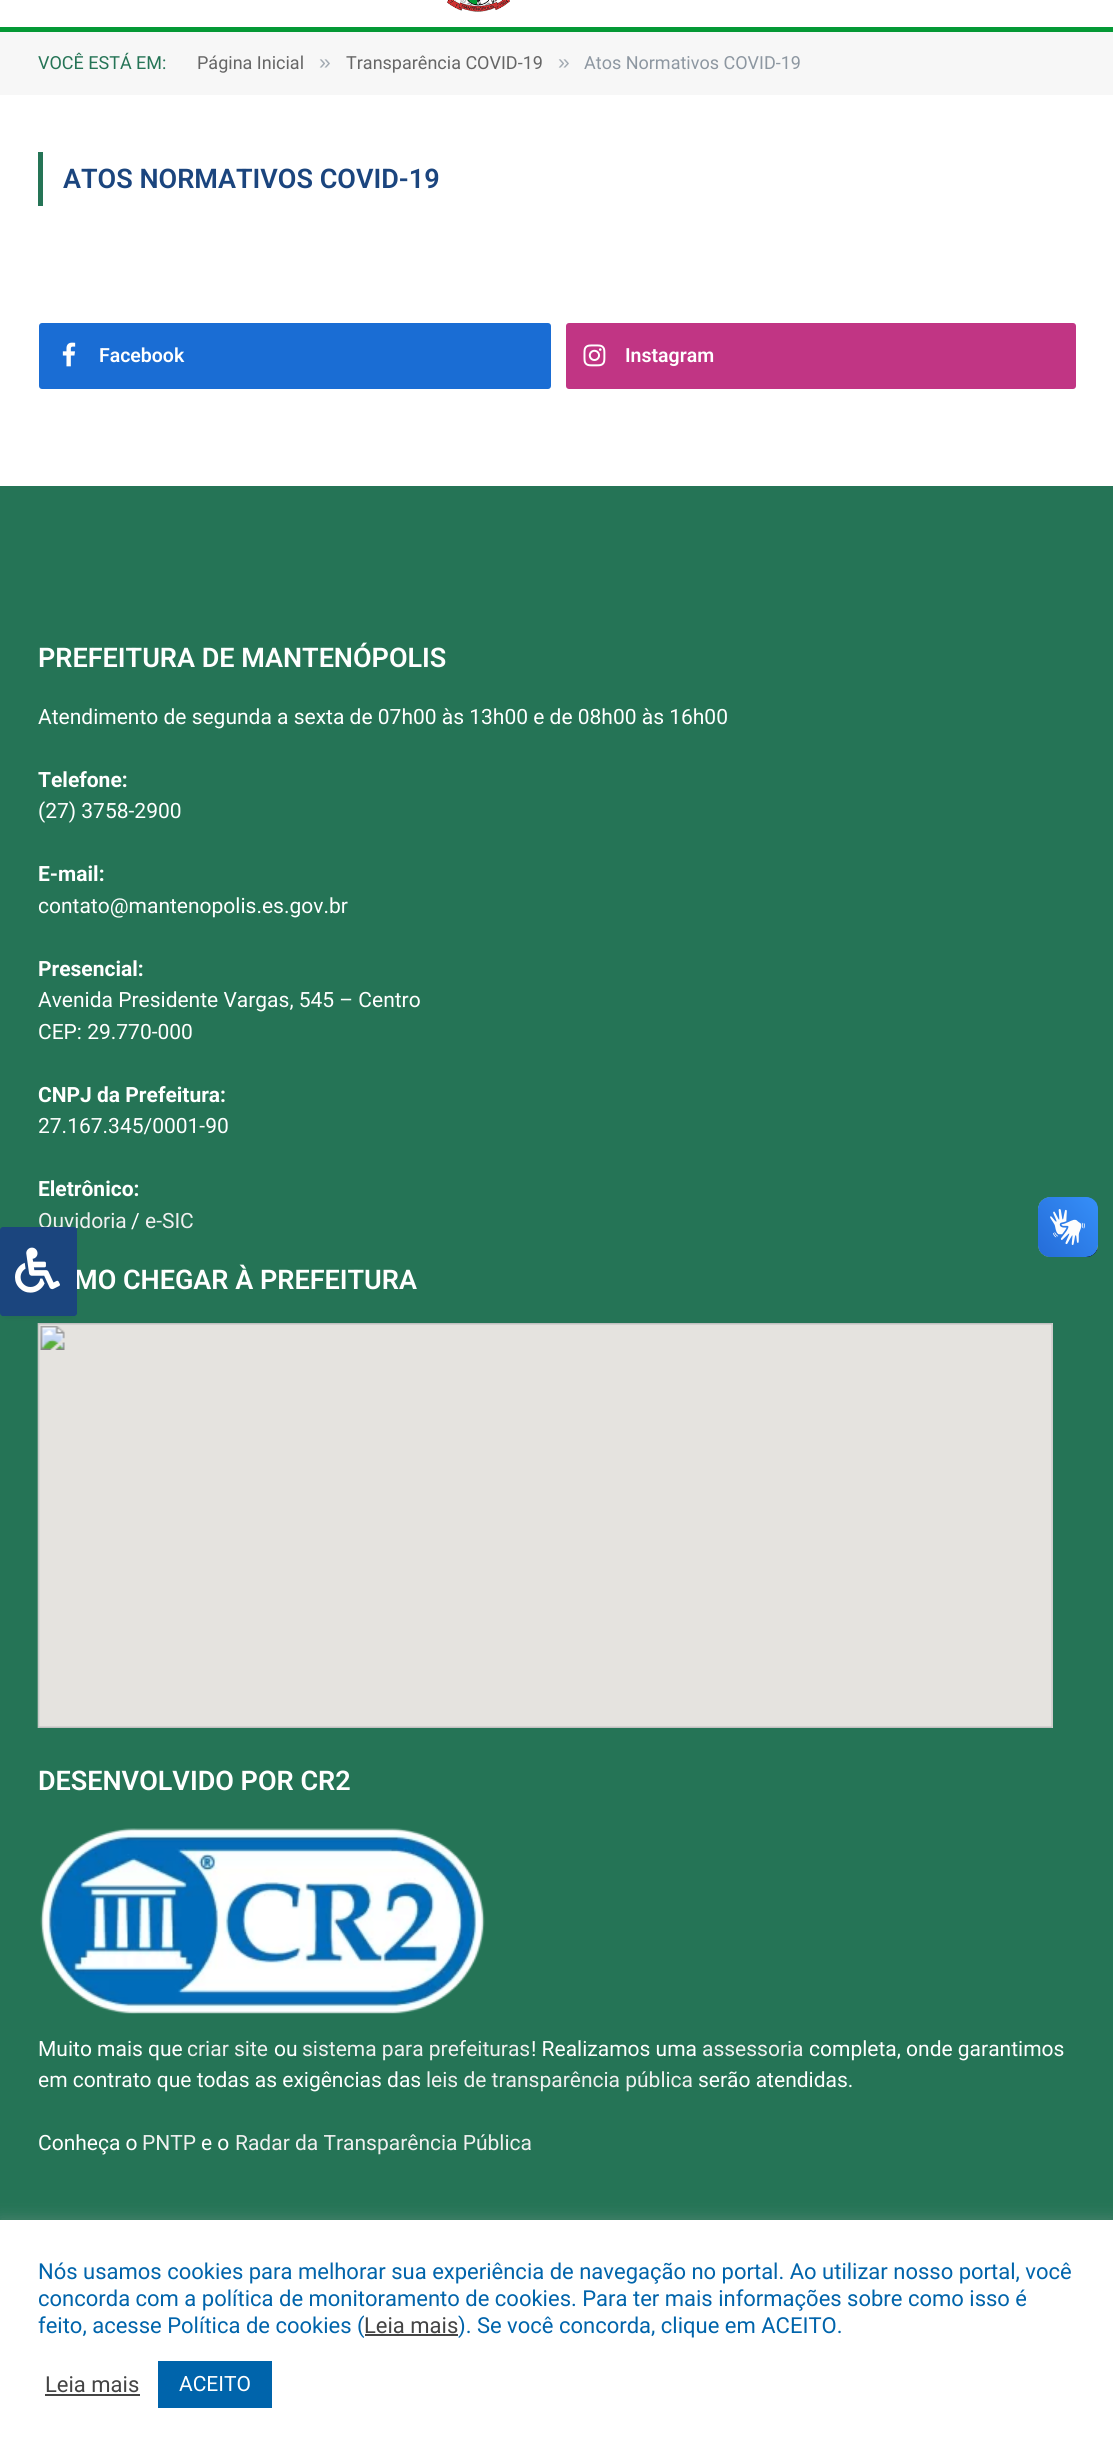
import math
import cairo

surface = cairo.ImageSurface(cairo.FORMAT_RGB24, 1113, 2452)
ctx = cairo.Context(surface)
options = cairo.FontOptions()
options.set_hint_metrics(cairo.HINT_METRICS_OFF)
options.set_hint_style(cairo.HINT_STYLE_NONE)
ctx.set_font_options(options)
ctx.set_miter_limit(4)


def set_color(code):
    ctx.set_source_rgb(*(v / 255 for v in bytes.fromhex(code[-6:])))


def draw_text(x, y, s, family, size, color, bold=False, italic=False):
    ctx.select_font_face(family, cairo.FONT_SLANT_ITALIC if italic else cairo.FONT_SLANT_NORMAL, cairo.FONT_WEIGHT_BOLD if bold else cairo.FONT_WEIGHT_NORMAL)
    ctx.set_font_size(size)
    set_color(color)
    ctx.move_to(x, y)
    ctx.show_text(s)


def fill_rect(x, y, w, h, color):
    set_color(color)
    ctx.rectangle(x, y, w, h)
    ctx.fill()


def rounded_rect(x, y, w, h, r):
    ctx.new_sub_path()
    for i, (u, v) in enumerate([(x + w - r, y + h - r), (x + r, y + h - r), (x + r, y + r), (x + w - r, y + r)]):
        ctx.arc(u, v, r, i * math.pi / 2, (i + 1) * math.pi / 2)
    ctx.close_path()


def draw_shadow(x, y, w, h, r, blur, alpha):
    ctx.push_group_with_content(cairo.CONTENT_ALPHA)
    ctx.set_operator(cairo.OPERATOR_SOURCE)
    for i in range(15, -16, -2):
        e = blur * i / 6
        if min(w, h) + 2 * e > 0:
            ctx.set_source_rgba(0, 0, 0, alpha * math.erfc((i - 1) / 8.5) / 2)
            rounded_rect(x - e, y - e, w + 2 * e, h + 2 * e, max(0, min(r + e + blur * .6, min(w, h) / 2 + e)))
            ctx.fill()
    ctx.mask(ctx.pop_group())


def draw_image(path, x, y, w, h):
    ctx.save()
    ctx.set_source_surface(cairo.ImageSurface.create_from_png(path), x, y)
    ctx.rectangle(x, y, w, h)
    ctx.fill()
    ctx.restore()


set_color("#ffffff")
ctx.paint()
fill_rect(0, 27, 1113, 5, "#049935")
draw_image("assets/img1.png", 447, 0, 63, 12)
fill_rect(0, 32, 1113, 63, "#f7f7f7")
draw_text(38, 69, "VOCÊ ESTÁ EM:", "Roboto", 18, "#257456")
draw_text(197, 69, "Página Inicial", "Roboto", 18, "#666666")
draw_text(319, 69, "»", "Liberation Sans", 21, "#a2aab2")
draw_text(346, 69, "Transparência COVID-19", "Roboto", 18, "#666666")
draw_text(558, 69, "»", "Liberation Sans", 21, "#a2aab2")
draw_text(584, 69, "Atos Normativos COVID-19", "Roboto", 18, "#8d97a1")
fill_rect(38, 152, 5, 54, "#257456")
draw_text(63, 188, "ATOS NORMATIVOS COVID-19", "Roboto SemiBold", 27, "#1b457e")
set_color("#1a6dd4")
rounded_rect(39, 323, 512, 66, 3)
ctx.fill()
draw_image("assets/img2.png", 62, 342, 14, 25)
draw_text(99, 362, "Facebook", "Roboto SemiBold", 19.5, "#ffffff")
set_color("#c13584")
rounded_rect(566, 323, 510, 66, 3)
ctx.fill()
draw_image("assets/img3.png", 583, 344, 23, 23)
draw_text(625, 362, "Instagram", "Roboto SemiBold", 19.5, "#ffffff")
fill_rect(0, 486, 1113, 1734, "#257456")
draw_text(38, 667, "PREFEITURA DE MANTENÓPOLIS", "Roboto SemiBold", 27, "#ffffff")
draw_text(38, 724, "Atendimento de segunda a sexta de 07h00 às 13h00 e de 08h00 às 16h00", "Roboto", 21, "#ffffff")
draw_text(38, 787, "Telefone:", "Roboto", 21, "#ffffff", bold=True)
draw_text(38, 818, "(27) 3758-2900", "Roboto", 21, "#ffffff")
draw_text(38, 881, "E-mail:", "Roboto", 21, "#ffffff", bold=True)
draw_text(38, 913, "contato@mantenopolis.es.gov.br", "Roboto", 21, "#ffffff")
draw_text(38, 976, "Presencial:", "Roboto", 21, "#ffffff", bold=True)
draw_text(38, 1007, "Avenida Presidente Vargas, 545 – Centro", "Roboto", 21, "#ffffff")
draw_text(38, 1039, "CEP: 29.770-000", "Roboto", 21, "#ffffff")
draw_text(38, 1102, "CNPJ da Prefeitura:", "Roboto", 21, "#ffffff", bold=True)
draw_text(38, 1133, "27.167.345/0001-90", "Roboto", 21, "#ffffff")
draw_text(38, 1196, "Eletrônico:", "Roboto", 21, "#ffffff", bold=True)
draw_text(38, 1228, "Ouvidoria", "Roboto", 21, "#f0f0f0")
draw_text(131, 1228, "/", "Roboto", 21, "#ffffff")
draw_text(145, 1228, "e-SIC", "Roboto", 21, "#f0f0f0")
draw_text(74, 1289, "MO CHEGAR À PREFEITURA", "Roboto SemiBold", 27, "#ffffff")
draw_image("assets/img4.png", 37, 1323, 1016, 405)
draw_text(38, 1790, "DESENVOLVIDO POR CR2", "Roboto SemiBold", 27, "#ffffff")
draw_image("assets/img5.png", 40, 1828, 445, 186)
draw_text(38, 2056, "Muito mais que", "Roboto", 21, "#ffffff")
draw_text(187, 2056, "criar site", "Roboto", 21, "#f0f0f0")
draw_text(274, 2056, "ou", "Roboto", 21, "#ffffff")
draw_text(302, 2056, "sistema para prefeituras", "Roboto", 21, "#f0f0f0")
draw_text(531, 2056, "! Realizamos uma", "Roboto", 21, "#ffffff")
draw_text(702, 2056, "assessoria", "Roboto", 21, "#f0f0f0")
draw_text(809, 2056, "completa, onde garantimos", "Roboto", 21, "#ffffff")
draw_text(38, 2087, "em contrato que todas as exigências das", "Roboto", 21, "#ffffff")
draw_text(426, 2087, "leis de transparência pública", "Roboto", 21, "#f0f0f0")
draw_text(698, 2087, "serão atendidas.", "Roboto", 21, "#ffffff")
draw_text(38, 2150, "Conheça o", "Roboto", 21, "#ffffff")
draw_text(142, 2150, "PNTP", "Roboto", 21, "#f0f0f0")
draw_text(201, 2150, "e o", "Roboto", 21, "#ffffff")
draw_text(235, 2150, "Radar da Transparência Pública", "Roboto", 21, "#f0f0f0")
set_color("#000000")
draw_shadow(6, 1236, 65, 77, 0, 5, 0.16)
set_color("#1b457e")
rounded_rect(0, 1227, 77, 89, 3)
ctx.fill()
fill_rect(76, 1229, 1, 85, "#1b457e")
fill_rect(2, 1315, 73, 1, "#1b457e")
draw_image("assets/img6.png", 15, 1247, 45, 46)
set_color("#acabab")
draw_shadow(0, 2219, 1113, 232, 0, 7.5, 0.3)
fill_rect(0, 2220, 1113, 232, "#ffffff")
draw_text(38, 2279, "Nós usamos cookies para melhorar sua experiência de navegação no portal. Ao utilizar nosso portal, você", "Roboto", 22, "#0064ab")
draw_text(38, 2306, "concorda com a política de monitoramento de cookies. Para ter mais informações sobre como isso é", "Roboto", 22, "#0064ab")
draw_text(38, 2333, "feito, acesse Política de cookies (", "Roboto", 22, "#0064ab")
draw_text(364, 2333, "Leia mais", "Roboto", 22, "#444444")
fill_rect(365, 2334, 93, 2, "#444444")
draw_text(458, 2333, "). Se você concorda, clique em ACEITO.", "Roboto", 22, "#0064ab")
draw_text(45, 2392, "Leia mais", "Roboto", 22, "#444444")
fill_rect(45, 2394, 95, 2, "#444444")
fill_rect(158, 2361, 114, 47, "#0064ab")
draw_text(179, 2391, "ACEITO", "Roboto", 21, "#ffffff")
draw_image("assets/img7.png", 1038, 1197, 60, 60)
draw_image("assets/img8.png", 1038, 1197, 60, 60)
surface.write_to_png("output.png")
